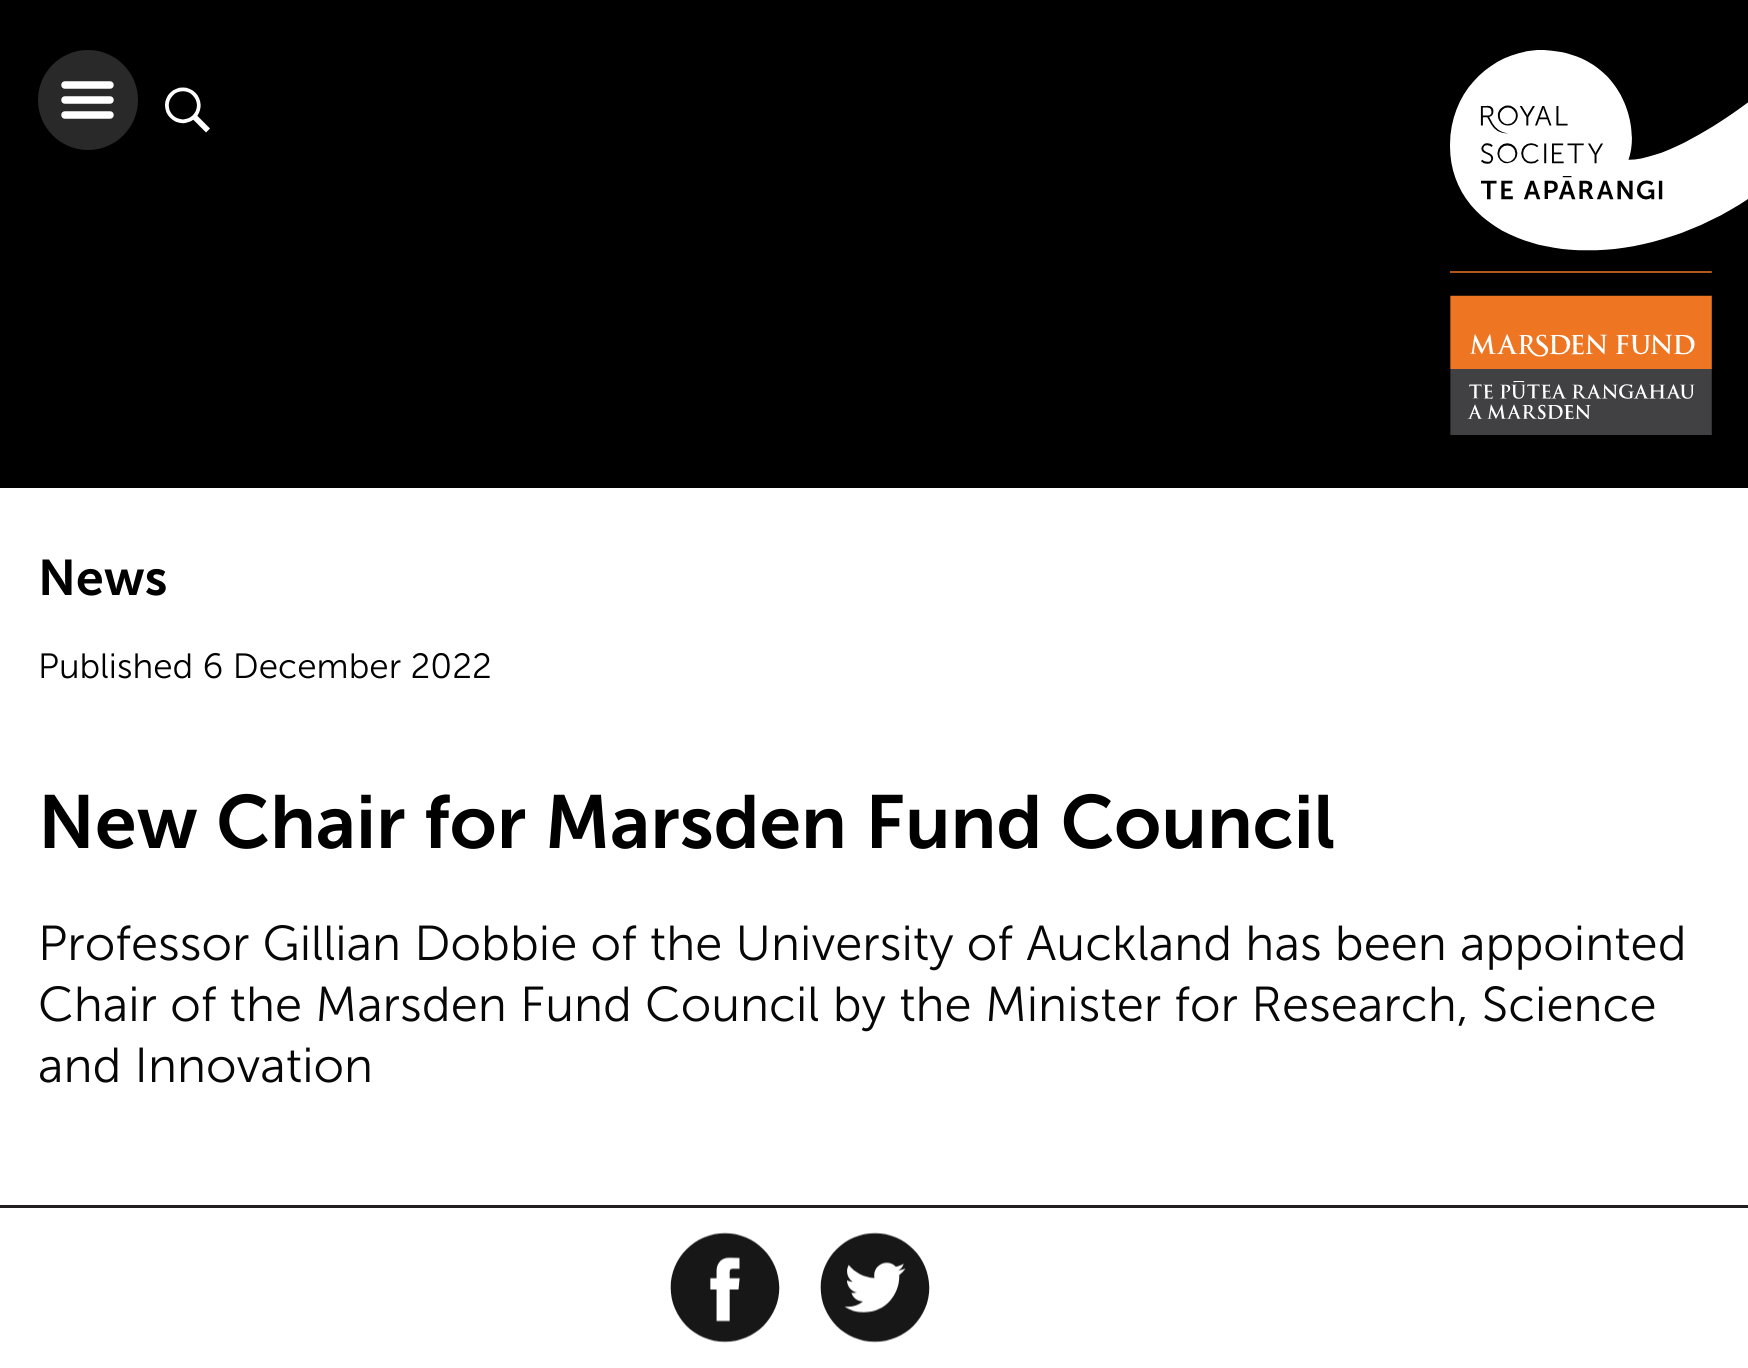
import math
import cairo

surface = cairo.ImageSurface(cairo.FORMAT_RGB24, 1748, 1368)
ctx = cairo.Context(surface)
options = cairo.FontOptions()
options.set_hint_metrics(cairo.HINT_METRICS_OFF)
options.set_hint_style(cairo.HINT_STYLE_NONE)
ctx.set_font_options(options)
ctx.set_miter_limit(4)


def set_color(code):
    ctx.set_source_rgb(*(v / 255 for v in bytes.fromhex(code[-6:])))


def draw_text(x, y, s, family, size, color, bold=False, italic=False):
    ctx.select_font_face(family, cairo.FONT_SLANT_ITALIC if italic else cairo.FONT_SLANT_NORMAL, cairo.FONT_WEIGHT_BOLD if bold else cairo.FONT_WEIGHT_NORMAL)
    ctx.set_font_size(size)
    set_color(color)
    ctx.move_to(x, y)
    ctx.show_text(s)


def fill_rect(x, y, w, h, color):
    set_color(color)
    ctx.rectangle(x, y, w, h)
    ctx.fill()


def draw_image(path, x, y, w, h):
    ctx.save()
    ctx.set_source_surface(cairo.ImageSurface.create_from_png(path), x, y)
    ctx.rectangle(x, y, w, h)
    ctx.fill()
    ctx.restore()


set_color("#ffffff")
ctx.paint()
fill_rect(0, 0, 1748, 488, "#000000")
set_color("#292929")
ctx.arc(88, 100, 50, 0, 2 * math.pi)
ctx.fill()
draw_image("assets/img1.png", 61, 81, 53, 38)
draw_image("assets/img2.png", 165, 87, 45, 46)
draw_image("assets/img3.png", 1450, 50, 298, 385)
draw_text(38, 595, "News", "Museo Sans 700 SemiBold", 50, "#000000")
draw_text(38, 678, "Published 6 December 2022", "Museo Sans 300 Light", 35, "#000000")
draw_text(38, 848, "New Chair for Marsden Fund Council", "Museo Sans 700 SemiBold", 75, "#000000")
draw_text(38, 960, "Professor Gillian Dobbie of the University of Auckland has been appointed", "Museo Sans 300 Light", 49, "#070707")
draw_text(38, 1021, "Chair of the Marsden Fund Council by the Minister for Research, Science", "Museo Sans 300 Light", 49, "#070707")
draw_text(38, 1082, "and Innovation", "Museo Sans 300 Light", 49, "#070707")
fill_rect(0, 1205, 1748, 3, "#231f20")
draw_image("assets/img4.png", 670, 1232, 110, 111)
draw_image("assets/img5.png", 820, 1232, 110, 111)
surface.write_to_png("output.png")
